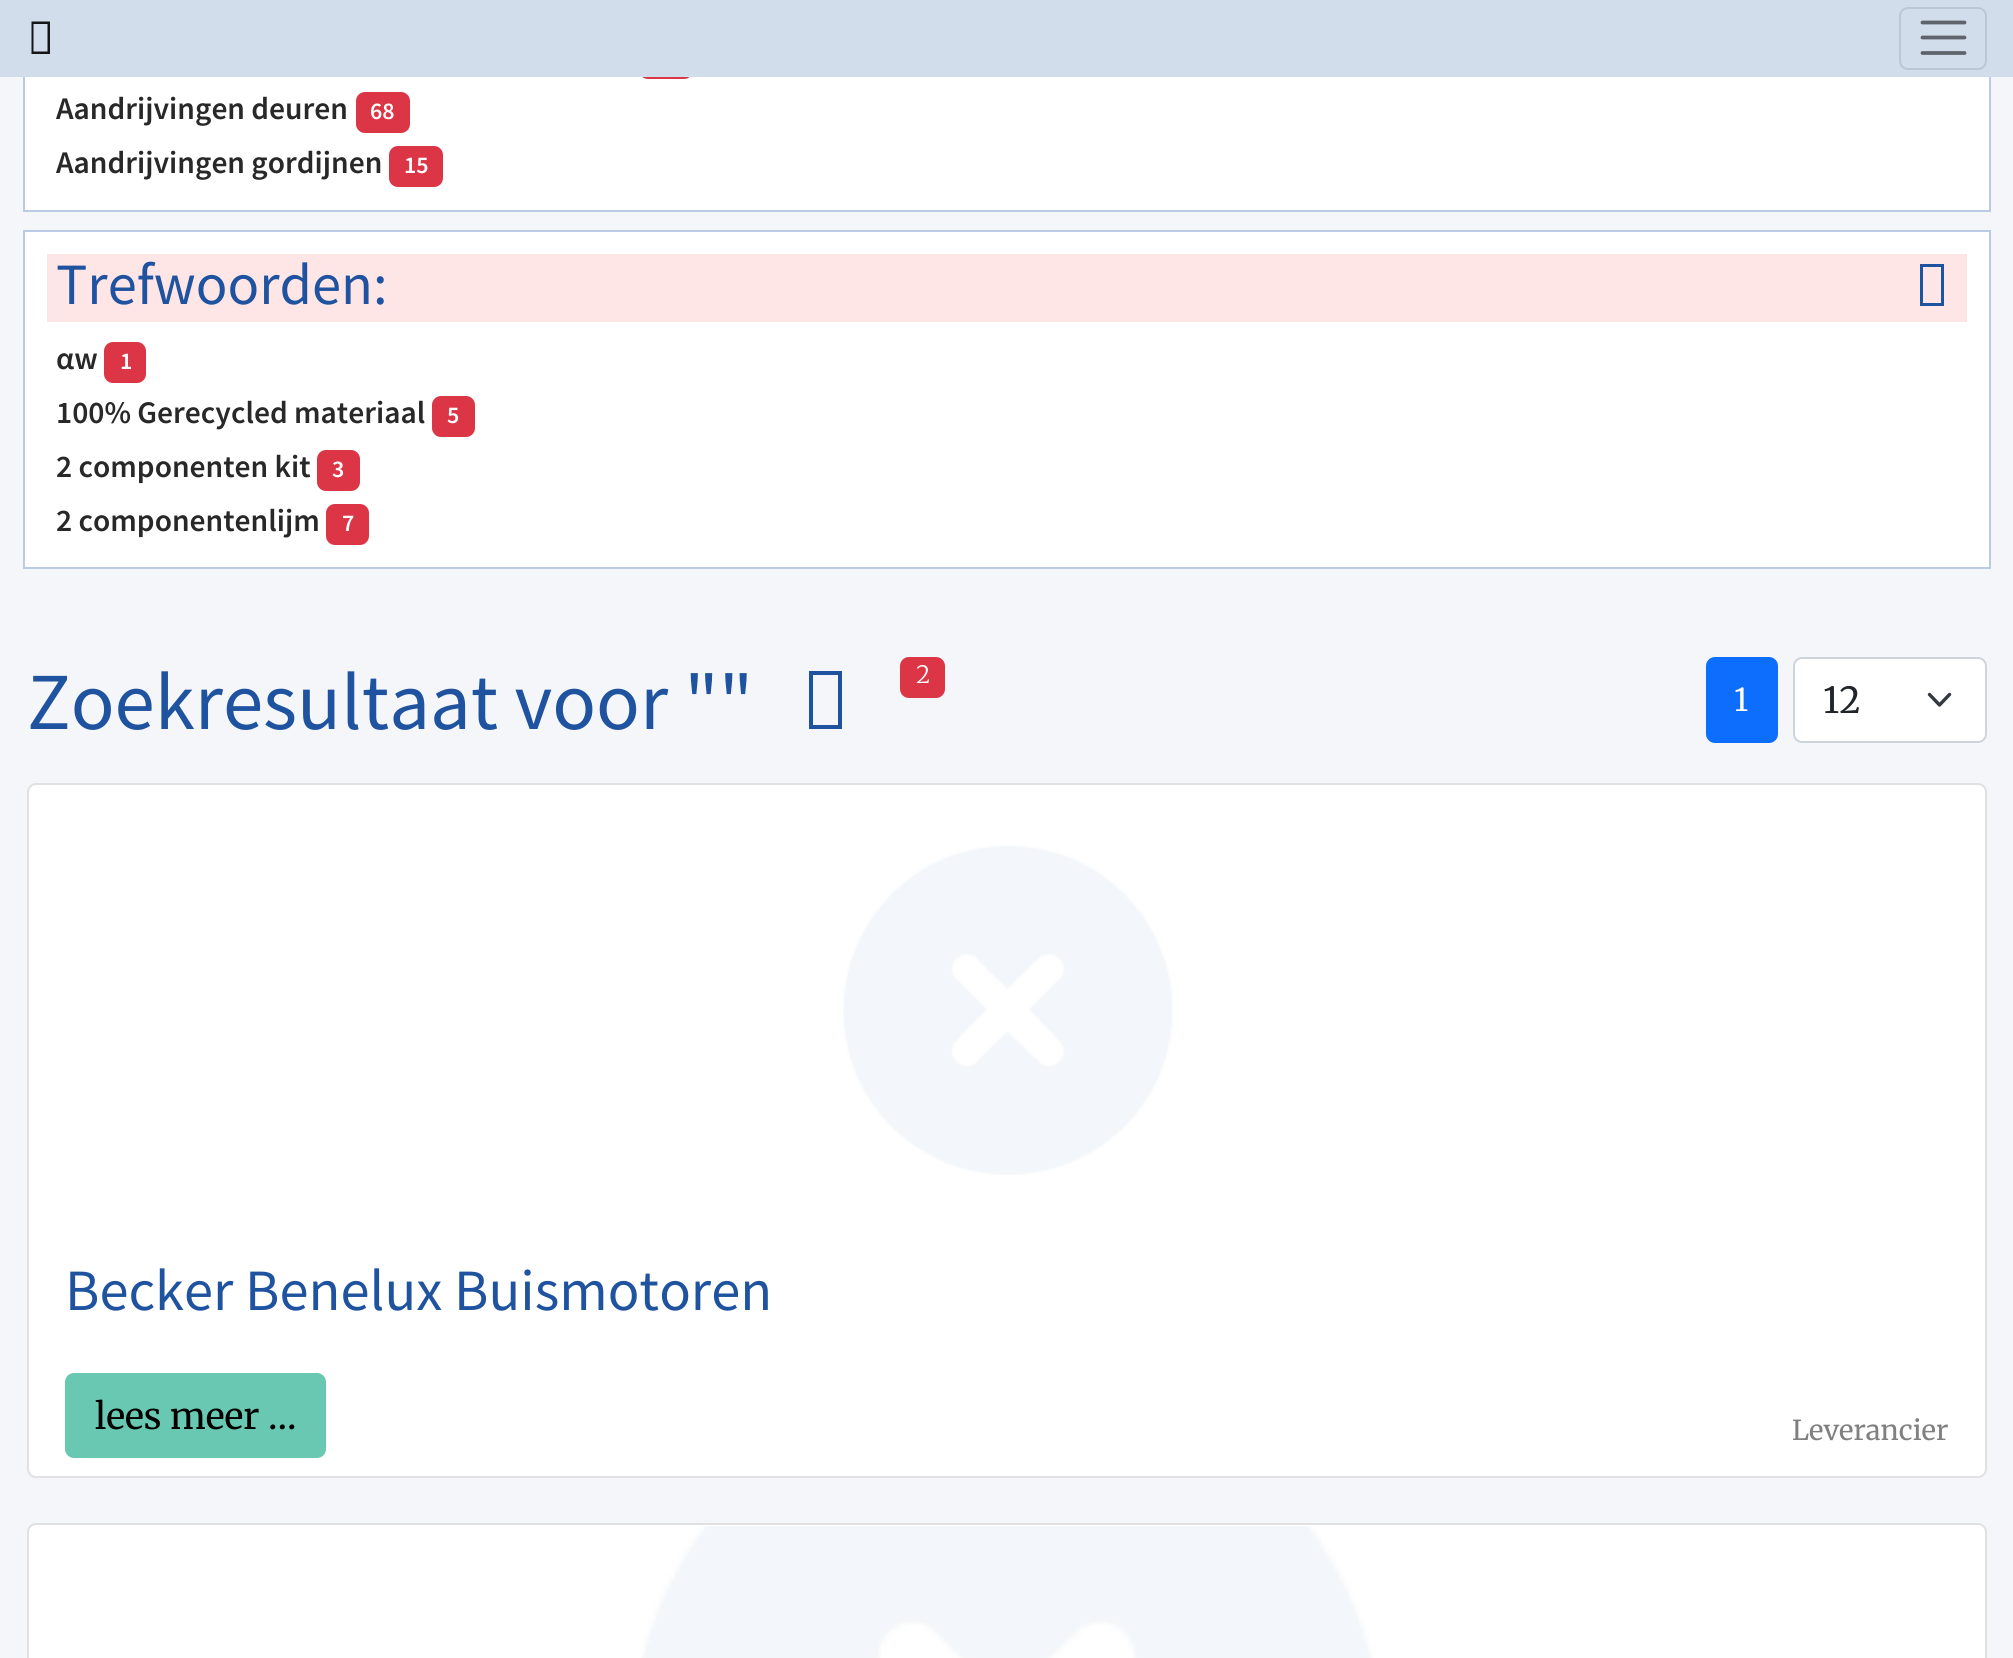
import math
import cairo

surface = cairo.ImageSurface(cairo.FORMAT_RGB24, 2013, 1658)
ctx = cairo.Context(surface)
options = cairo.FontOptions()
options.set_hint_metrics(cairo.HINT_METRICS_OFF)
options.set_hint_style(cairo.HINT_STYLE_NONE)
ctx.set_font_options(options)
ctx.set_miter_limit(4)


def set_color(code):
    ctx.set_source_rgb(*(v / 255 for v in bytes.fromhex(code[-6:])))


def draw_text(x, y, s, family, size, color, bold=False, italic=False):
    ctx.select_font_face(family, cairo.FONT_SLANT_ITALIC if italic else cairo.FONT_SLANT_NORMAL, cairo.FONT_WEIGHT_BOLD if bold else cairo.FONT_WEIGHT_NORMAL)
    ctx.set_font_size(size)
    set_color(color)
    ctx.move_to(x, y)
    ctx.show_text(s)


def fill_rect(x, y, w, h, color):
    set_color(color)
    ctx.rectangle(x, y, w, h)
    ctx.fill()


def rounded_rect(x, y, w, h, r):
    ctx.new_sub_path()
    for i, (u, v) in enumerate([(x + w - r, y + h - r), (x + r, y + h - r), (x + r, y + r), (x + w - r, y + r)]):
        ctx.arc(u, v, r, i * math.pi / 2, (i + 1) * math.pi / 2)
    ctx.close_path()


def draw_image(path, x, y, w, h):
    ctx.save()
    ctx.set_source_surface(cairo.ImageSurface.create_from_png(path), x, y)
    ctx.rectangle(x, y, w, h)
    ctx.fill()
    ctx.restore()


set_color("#f4f6fa")
ctx.paint()
fill_rect(25, 77, 1964, 133, "#ffffff")
ctx.rectangle(24, -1, 1966, 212)
set_color("#bccbe3")
ctx.stroke()
set_color("#dc3545")
rounded_rect(639, 38, 54, 41, 9)
ctx.fill()
fill_rect(0, 0, 2013, 77, "#d2ddec")
set_color("#151618")
ctx.new_path()
ctx.move_to(31.5, 54)
ctx.line_to(31.5, 21.5)
ctx.line_to(50, 21.5)
ctx.line_to(50, 54)
ctx.close_path()
ctx.move_to(33.5, 51.5)
ctx.line_to(47.5, 51.5)
ctx.line_to(47.5, 24)
ctx.line_to(33.5, 24)
ctx.close_path()
ctx.fill()
rounded_rect(1900, 8, 86, 61, 8)
set_color("#bdc7d4")
ctx.stroke()
ctx.new_path()
ctx.move_to(1922.5, 22.5)
ctx.line_to(1964.5, 22.5)
ctx.move_to(1922.5, 37.5)
ctx.line_to(1964.5, 37.5)
ctx.move_to(1922.5, 53)
ctx.line_to(1964.5, 53)
set_color("#5f636a")
ctx.set_line_width(3.8)
ctx.set_line_cap(cairo.LINE_CAP_ROUND)
ctx.stroke()
draw_text(56, 119, "Aandrijvingen deuren", "Source Sans Pro SemiBold", 31.5, "#282828")
set_color("#dc3545")
rounded_rect(356, 92, 54, 41, 9)
ctx.fill()
draw_text(370, 119, "68", "Source Sans Pro SemiBold", 24, "#ffffff")
draw_text(56, 173, "Aandrijvingen gordijnen", "Source Sans Pro SemiBold", 31.5, "#282828")
set_color("#dc3545")
rounded_rect(389, 146, 54, 41, 9)
ctx.fill()
draw_text(404, 173, "15", "Source Sans Pro SemiBold", 24, "#ffffff")
ctx.rectangle(24, 231, 1966, 337)
ctx.fill_preserve()
set_color("#bccbe3")
ctx.set_line_width(2)
ctx.set_line_cap(cairo.LINE_CAP_BUTT)
ctx.stroke()
fill_rect(47, 254, 1920, 68, "#ffe6e6")
draw_text(56, 304, "Trefwoorden:", "Source Sans Pro", 58.5, "#1f53a0")
ctx.new_path()
ctx.move_to(1920, 306)
ctx.line_to(1920, 264)
ctx.line_to(1944, 264)
ctx.line_to(1944, 306)
ctx.close_path()
ctx.move_to(1923, 303)
ctx.line_to(1941, 303)
ctx.line_to(1941, 267)
ctx.line_to(1923, 267)
ctx.close_path()
ctx.fill()
draw_text(56, 369, "αw", "Source Sans Pro SemiBold", 31.5, "#282828")
set_color("#dc3545")
rounded_rect(104, 342, 42, 41, 9)
ctx.fill()
draw_text(120, 369, "1", "Source Sans Pro SemiBold", 24, "#ffffff")
draw_text(56, 423, "100% Gerecycled materiaal", "Source Sans Pro SemiBold", 31.5, "#282828")
set_color("#dc3545")
rounded_rect(432, 396, 43, 41, 9)
ctx.fill()
draw_text(447, 423, "5", "Source Sans Pro SemiBold", 24, "#ffffff")
draw_text(56, 477, "2 componenten kit", "Source Sans Pro SemiBold", 31.5, "#282828")
set_color("#dc3545")
rounded_rect(317, 450, 43, 41, 9)
ctx.fill()
draw_text(332, 477, "3", "Source Sans Pro SemiBold", 24, "#ffffff")
draw_text(56, 531, "2 componentenlijm", "Source Sans Pro SemiBold", 31.5, "#282828")
set_color("#dc3545")
rounded_rect(326, 504, 43, 41, 9)
ctx.fill()
draw_text(342, 531, "7", "Source Sans Pro SemiBold", 24, "#ffffff")
draw_text(27, 729, "Zoekresultaat voor \"\"", "Source Sans Pro", 81, "#1f53a0")
ctx.new_path()
ctx.move_to(809, 729)
ctx.line_to(809, 671)
ctx.line_to(842, 671)
ctx.line_to(842, 729)
ctx.close_path()
ctx.move_to(813, 725)
ctx.line_to(838, 725)
ctx.line_to(838, 675)
ctx.line_to(813, 675)
ctx.close_path()
ctx.fill()
set_color("#dc3545")
rounded_rect(900, 657, 45, 41, 9)
ctx.fill()
draw_text(916, 683, "2", "Merriweather Light", 24, "#ffffff")
set_color("#0d6efd")
rounded_rect(1707, 658, 70, 84, 8)
ctx.fill_preserve()
ctx.stroke()
draw_text(1734, 711, "1", "Merriweather", 31.5, "#ffffff")
rounded_rect(1793, 657, 194, 86, 9)
ctx.fill()
ctx.new_path()
ctx.move_to(1929.5, 694.5)
ctx.line_to(1939.5, 705)
ctx.line_to(1949.5, 694.5)
set_color("#343a40")
ctx.set_line_width(3.4)
ctx.set_line_cap(cairo.LINE_CAP_ROUND)
ctx.set_line_join(cairo.LINE_JOIN_ROUND)
ctx.stroke()
rounded_rect(1794, 658, 192, 84, 8)
set_color("#ced4da")
ctx.set_line_width(2)
ctx.set_line_cap(cairo.LINE_CAP_BUTT)
ctx.set_line_join(cairo.LINE_JOIN_MITER)
ctx.stroke()
draw_text(1823, 713, "12", "Merriweather", 36, "#212529")
set_color("#ffffff")
rounded_rect(27, 783, 1960, 695, 9)
ctx.fill()
rounded_rect(28, 784, 1958, 693, 8)
ctx.set_source_rgba(0, 0, 0, 0.12)
ctx.stroke()
draw_image("assets/img1.png", 843, 845, 330, 330)
draw_text(65, 1310, "Becker Benelux Buismotoren", "Source Sans Pro", 58.5, "#1f53a0")
set_color("#68c8b1")
rounded_rect(66, 1374, 259, 83, 8)
ctx.fill_preserve()
ctx.stroke()
draw_text(95, 1429, "lees meer …", "Merriweather", 36, "#000000")
draw_text(1792, 1440, "Leverancier", "Merriweather", 27.5, "#808080")
set_color("#ffffff")
rounded_rect(27, 1523, 1960, 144, 9)
ctx.fill()
rounded_rect(28, 1524, 1958, 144, 8)
ctx.set_source_rgba(0, 0, 0, 0.12)
ctx.stroke()
draw_image("assets/img2.png", 641, 1526, 732, 132)
surface.write_to_png("output.png")
